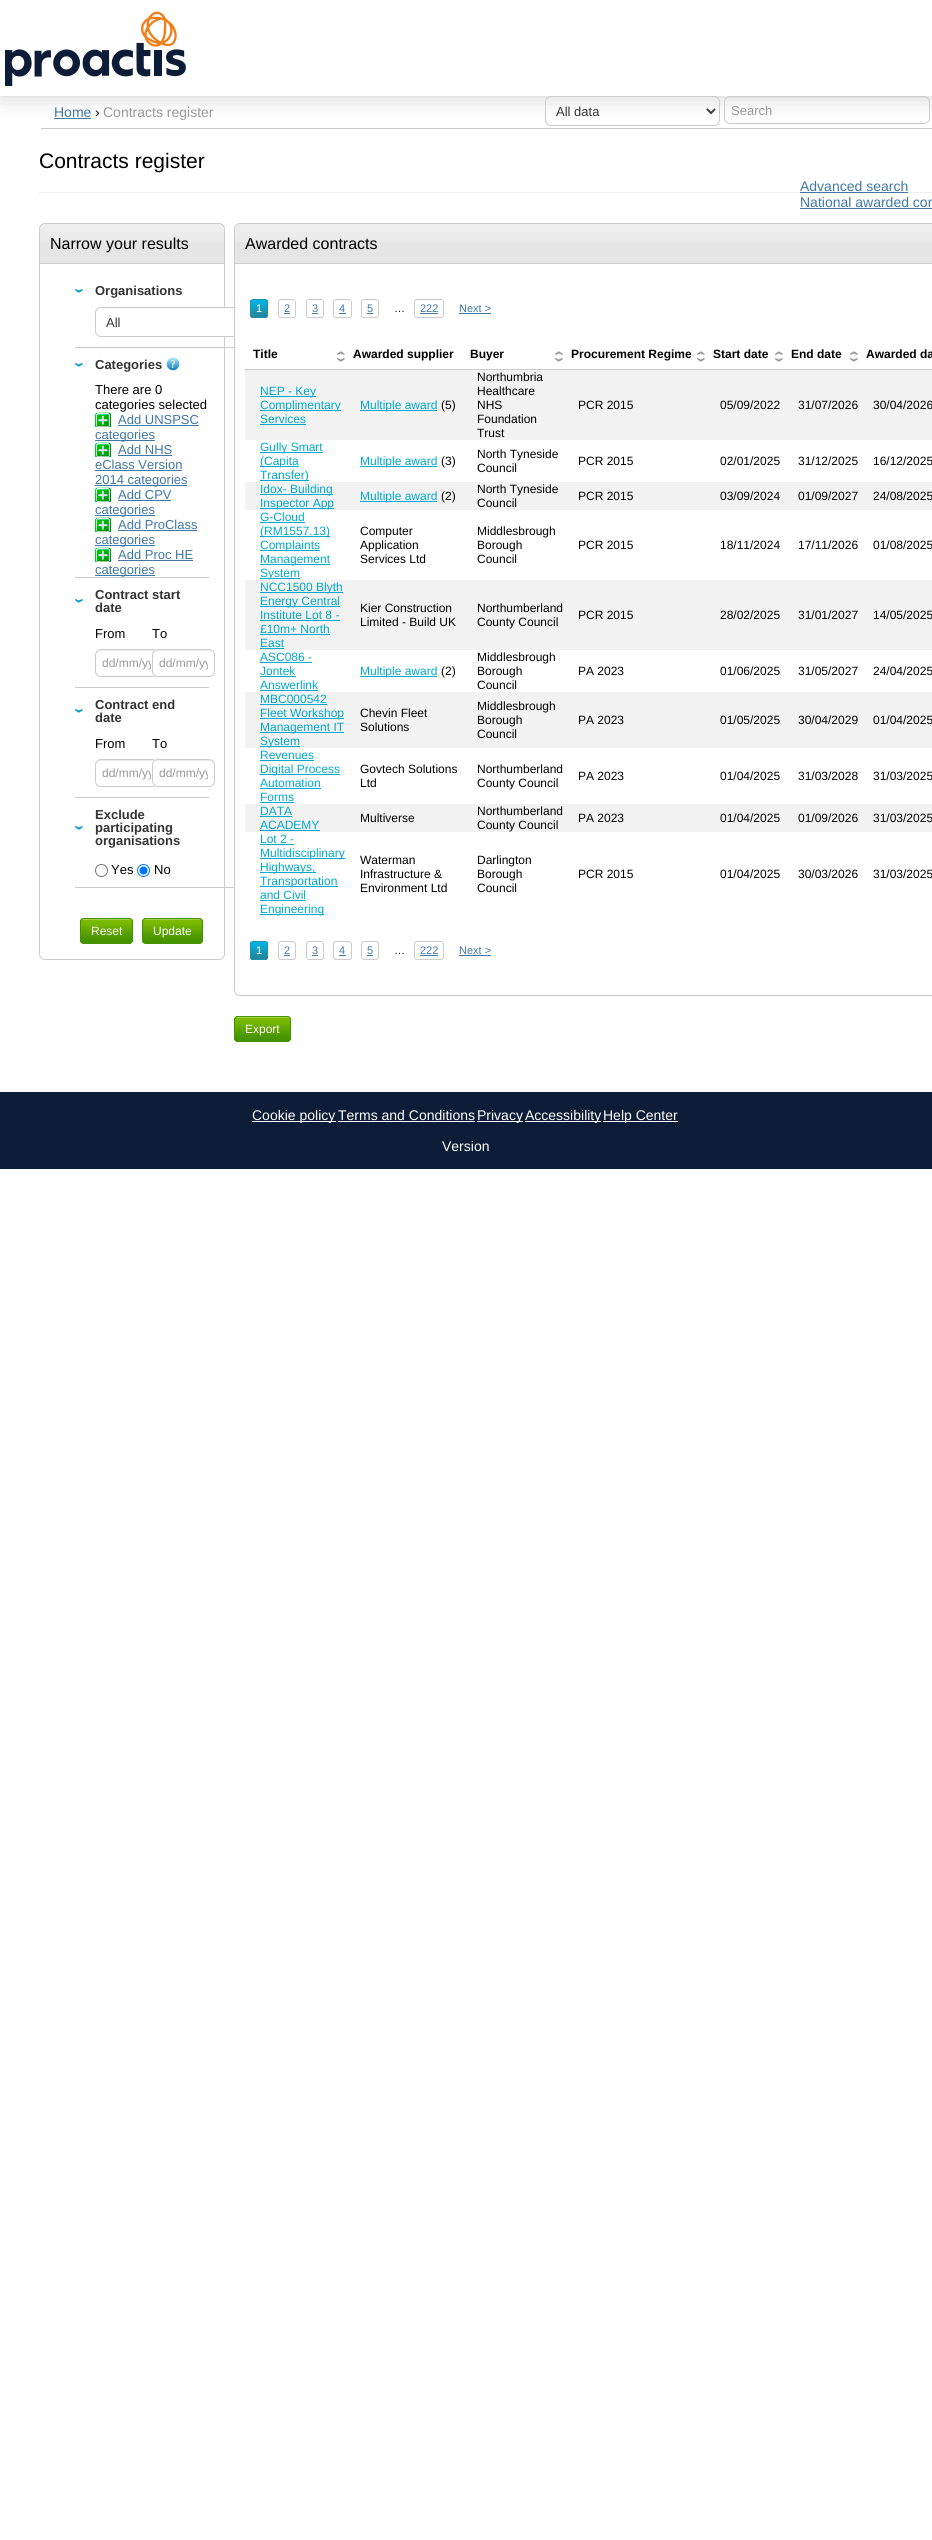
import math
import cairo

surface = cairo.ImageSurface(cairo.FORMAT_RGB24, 932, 2540)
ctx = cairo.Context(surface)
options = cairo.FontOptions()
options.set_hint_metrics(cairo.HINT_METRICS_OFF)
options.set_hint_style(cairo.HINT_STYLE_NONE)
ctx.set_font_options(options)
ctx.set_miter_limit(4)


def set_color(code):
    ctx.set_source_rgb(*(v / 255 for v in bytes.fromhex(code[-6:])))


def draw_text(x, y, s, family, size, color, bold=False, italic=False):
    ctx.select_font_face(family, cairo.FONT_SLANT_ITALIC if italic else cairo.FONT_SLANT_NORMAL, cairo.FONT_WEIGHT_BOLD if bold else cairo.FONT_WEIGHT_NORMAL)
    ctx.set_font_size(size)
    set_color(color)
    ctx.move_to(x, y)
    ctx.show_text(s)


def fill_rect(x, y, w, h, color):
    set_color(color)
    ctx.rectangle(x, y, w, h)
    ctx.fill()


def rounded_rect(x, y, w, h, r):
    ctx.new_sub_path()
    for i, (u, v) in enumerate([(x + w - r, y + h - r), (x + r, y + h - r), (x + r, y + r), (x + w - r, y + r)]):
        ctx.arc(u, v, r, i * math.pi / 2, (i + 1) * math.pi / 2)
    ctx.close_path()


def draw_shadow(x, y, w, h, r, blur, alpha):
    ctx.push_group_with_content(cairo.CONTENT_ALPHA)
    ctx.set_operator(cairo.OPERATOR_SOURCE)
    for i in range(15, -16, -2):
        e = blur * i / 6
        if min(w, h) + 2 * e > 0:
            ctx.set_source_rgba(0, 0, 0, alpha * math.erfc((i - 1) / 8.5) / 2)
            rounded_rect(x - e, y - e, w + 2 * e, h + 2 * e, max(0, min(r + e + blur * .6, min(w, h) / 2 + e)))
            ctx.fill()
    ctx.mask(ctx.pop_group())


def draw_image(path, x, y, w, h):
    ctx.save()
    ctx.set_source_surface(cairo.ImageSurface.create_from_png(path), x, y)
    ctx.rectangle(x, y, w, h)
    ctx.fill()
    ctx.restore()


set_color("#ffffff")
ctx.paint()
fill_rect(41, 128, 891, 1, "#cccccc")
fill_rect(54, 118, 37, 1, "#4077a6")
rounded_rect(545.5, 96.5, 174, 29, 5.5)
set_color("#cccccc")
ctx.set_line_width(1)
ctx.stroke()
ctx.new_path()
ctx.move_to(707, 109)
ctx.line_to(711, 113)
ctx.line_to(715, 109)
set_color("#333333")
ctx.set_line_width(2)
ctx.stroke()
set_color("#ececec")
ctx.new_path()
ctx.move_to(730, 98)
ctx.line_to(924, 98)
ctx.curve_to(927, 98, 929, 100, 929, 103)
ctx.line_to(929, 102)
ctx.curve_to(929, 99, 927, 97, 924, 97)
ctx.line_to(730, 97)
ctx.curve_to(727, 97, 725, 99, 725, 102)
ctx.line_to(725, 103)
ctx.curve_to(725, 100, 727, 98, 730, 98)
ctx.close_path()
ctx.fill()
rounded_rect(724.5, 96.5, 205, 27, 5.5)
set_color("#cccccc")
ctx.set_line_width(1)
ctx.stroke()
ctx.save()
ctx.rectangle(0, 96, 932, 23)
ctx.clip()
set_color("#cdcdcd")
draw_shadow(0, 0, 932, 96, 0, 11, 1)
ctx.restore()
draw_image("assets/img1.png", 5, 11, 181, 75)
draw_text(54, 117, "Home", "Liberation Sans", 14, "#4077a6")
draw_text(95, 117, "›", "Liberation Sans", 14, "#000000")
draw_text(103, 117, "Contracts register", "Liberation Sans", 14, "#999999")
draw_text(556, 116, "All data", "Liberation Sans", 13, "#333333")
draw_text(731, 115, "Search", "Liberation Sans", 13, "#999999")
fill_rect(39, 192, 893, 1, "#eeeeee")
draw_text(39, 168, "Contracts register", "Liberation Sans", 21, "#000000")
rounded_rect(39.5, 223.5, 185, 736, 5.5)
set_color("#cccccc")
ctx.stroke()
set_color("#e5e5e5")
ctx.new_path()
ctx.move_to(46, 224)
ctx.line_to(218, 224)
ctx.curve_to(221.5, 224, 224, 226.5, 224, 230)
ctx.line_to(224, 264)
ctx.line_to(40, 264)
ctx.line_to(40, 230)
ctx.curve_to(40, 226.5, 42.5, 224, 46, 224)
ctx.close_path()
ctx.fill()
draw_image("assets/img2.png", 40, 224, 184, 18)
fill_rect(40, 263, 184, 1, "#cccccc")
draw_text(50, 249, "Narrow your results", "Liberation Sans", 16, "#000000")
fill_rect(75, 347, 159, 1, "#cccccc")
draw_image("assets/img3.png", 75, 289, 8, 4)
draw_text(95, 295, "Organisations", "Liberation Sans", 13, "#333333", bold=True)
set_color("#ffffff")
rounded_rect(95.5, 307.5, 219, 29, 5.5)
ctx.fill_preserve()
set_color("#cccccc")
ctx.stroke()
draw_text(106, 327, "All", "Liberation Sans", 13, "#333333")
fill_rect(75, 577, 134, 1, "#cccccc")
draw_image("assets/img3.png", 75, 363, 8, 4)
draw_text(95, 369, "Categories", "Liberation Sans", 13, "#333333", bold=True)
draw_image("assets/img4.png", 166, 357, 14, 14)
draw_text(95, 394, "There are 0", "Liberation Sans", 13, "#000000")
draw_text(95, 409, "categories selected", "Liberation Sans", 13, "#000000")
draw_image("assets/img5.png", 95, 412, 16, 15)
draw_text(118, 424, "Add UNSPSC", "Liberation Sans", 13, "#4077a6")
fill_rect(118, 425, 81, 1, "#4077a6")
fill_rect(95, 440, 60, 1, "#4077a6")
draw_text(95, 439, "categories", "Liberation Sans", 13, "#4077a6")
draw_image("assets/img5.png", 95, 442, 16, 15)
draw_text(118, 454, "Add NHS", "Liberation Sans", 13, "#4077a6")
fill_rect(118, 455, 54, 1, "#4077a6")
draw_text(95, 469, "eClass Version", "Liberation Sans", 13, "#4077a6")
fill_rect(95, 470, 87, 1, "#4077a6")
fill_rect(95, 485, 92, 1, "#4077a6")
draw_text(95, 484, "2014 categories", "Liberation Sans", 13, "#4077a6")
draw_image("assets/img5.png", 95, 487, 16, 15)
draw_text(118, 499, "Add CPV", "Liberation Sans", 13, "#4077a6")
fill_rect(118, 500, 53, 1, "#4077a6")
fill_rect(95, 515, 60, 1, "#4077a6")
draw_text(95, 514, "categories", "Liberation Sans", 13, "#4077a6")
draw_image("assets/img5.png", 95, 517, 16, 15)
draw_text(118, 529, "Add ProClass", "Liberation Sans", 13, "#4077a6")
fill_rect(118, 530, 79, 1, "#4077a6")
fill_rect(95, 545, 60, 1, "#4077a6")
draw_text(95, 544, "categories", "Liberation Sans", 13, "#4077a6")
draw_image("assets/img5.png", 95, 547, 16, 15)
draw_text(118, 559, "Add Proc HE", "Liberation Sans", 13, "#4077a6")
fill_rect(118, 560, 75, 1, "#4077a6")
fill_rect(95, 575, 60, 1, "#4077a6")
draw_text(95, 574, "categories", "Liberation Sans", 13, "#4077a6")
fill_rect(75, 687, 134, 1, "#cccccc")
draw_image("assets/img3.png", 75, 599, 8, 4)
draw_text(95, 599, "Contract start", "Liberation Sans", 13, "#333333", bold=True)
draw_text(95, 612, "date", "Liberation Sans", 13, "#333333", bold=True)
draw_text(95, 638, "From", "Liberation Sans", 13, "#000000")
set_color("#ececec")
ctx.new_path()
ctx.move_to(101, 651)
ctx.line_to(152, 651)
ctx.curve_to(155, 651, 157, 653, 157, 656)
ctx.curve_to(157, 648, 149, 650, 144, 650)
ctx.line_to(110, 650)
ctx.curve_to(104, 650, 96, 648, 96, 656)
ctx.curve_to(96, 653, 98, 651, 101, 651)
ctx.close_path()
ctx.fill()
rounded_rect(95.5, 649.5, 62, 27, 5.5)
set_color("#cccccc")
ctx.stroke()
ctx.save()
ctx.rectangle(102, 656, 49, 14)
ctx.clip()
draw_text(102, 667, "dd/mm/yy", "Liberation Sans", 12, "#999999")
ctx.restore()
draw_text(152, 638, "To", "Liberation Sans", 13, "#000000")
set_color("#ffffff")
rounded_rect(152, 649, 63, 28, 6)
ctx.fill()
set_color("#ececec")
ctx.new_path()
ctx.move_to(158, 651)
ctx.line_to(209, 651)
ctx.curve_to(212, 651, 214, 653, 214, 656)
ctx.curve_to(214, 648, 206, 650, 200, 650)
ctx.line_to(166, 650)
ctx.curve_to(161, 650, 153, 648, 153, 656)
ctx.curve_to(153, 653, 155, 651, 158, 651)
ctx.close_path()
ctx.fill()
rounded_rect(152.5, 649.5, 62, 27, 5.5)
set_color("#cccccc")
ctx.stroke()
ctx.save()
ctx.rectangle(159, 656, 49, 14)
ctx.clip()
draw_text(159, 667, "dd/mm/yy", "Liberation Sans", 12, "#999999")
ctx.restore()
fill_rect(75, 797, 134, 1, "#cccccc")
draw_image("assets/img3.png", 75, 709, 8, 4)
draw_text(95, 709, "Contract end", "Liberation Sans", 13, "#333333", bold=True)
draw_text(95, 722, "date", "Liberation Sans", 13, "#333333", bold=True)
draw_text(95, 748, "From", "Liberation Sans", 13, "#000000")
set_color("#ececec")
ctx.new_path()
ctx.move_to(101, 761)
ctx.line_to(152, 761)
ctx.curve_to(155, 761, 157, 763, 157, 766)
ctx.curve_to(157, 758, 149, 760, 144, 760)
ctx.line_to(110, 760)
ctx.curve_to(104, 760, 96, 758, 96, 766)
ctx.curve_to(96, 763, 98, 761, 101, 761)
ctx.close_path()
ctx.fill()
rounded_rect(95.5, 759.5, 62, 27, 5.5)
set_color("#cccccc")
ctx.stroke()
ctx.save()
ctx.rectangle(102, 766, 49, 14)
ctx.clip()
draw_text(102, 777, "dd/mm/yy", "Liberation Sans", 12, "#999999")
ctx.restore()
draw_text(152, 748, "To", "Liberation Sans", 13, "#000000")
set_color("#ffffff")
rounded_rect(152, 759, 63, 28, 6)
ctx.fill()
set_color("#ececec")
ctx.new_path()
ctx.move_to(158, 761)
ctx.line_to(209, 761)
ctx.curve_to(212, 761, 214, 763, 214, 766)
ctx.curve_to(214, 758, 206, 760, 200, 760)
ctx.line_to(166, 760)
ctx.curve_to(161, 760, 153, 758, 153, 766)
ctx.curve_to(153, 763, 155, 761, 158, 761)
ctx.close_path()
ctx.fill()
rounded_rect(152.5, 759.5, 62, 27, 5.5)
set_color("#cccccc")
ctx.stroke()
ctx.save()
ctx.rectangle(159, 766, 49, 14)
ctx.clip()
draw_text(159, 777, "dd/mm/yy", "Liberation Sans", 12, "#999999")
ctx.restore()
fill_rect(75, 887, 159, 1, "#cccccc")
draw_image("assets/img3.png", 75, 826, 8, 4)
draw_text(95, 819, "Exclude", "Liberation Sans", 13, "#333333", bold=True)
draw_text(95, 832, "participating", "Liberation Sans", 13, "#333333", bold=True)
draw_text(95, 845, "organisations", "Liberation Sans", 13, "#333333", bold=True)
ctx.new_path()
ctx.arc(101.5, 870.5, 6, 0, 2 * math.pi)
set_color("#767676")
ctx.stroke()
draw_text(111, 874, "Yes", "Liberation Sans", 13, "#000000")
ctx.new_path()
ctx.arc(143.5, 870.5, 6, 0, 2 * math.pi)
set_color("#0075ff")
ctx.stroke()
ctx.arc(143.5, 870.5, 4, 0, 2 * math.pi)
ctx.fill()
draw_text(154, 874, "No", "Liberation Sans", 13, "#000000")
set_color("#459300")
rounded_rect(80, 918, 53, 26, 4)
ctx.fill()
draw_image("assets/img6.png", 80, 919, 53, 23)
rounded_rect(80.5, 918.5, 52, 25, 3.5)
ctx.stroke()
draw_text(91, 935, "Reset", "Liberation Sans", 12, "#ffffff")
set_color("#459300")
rounded_rect(142, 918, 61, 26, 4)
ctx.fill()
draw_image("assets/img7.png", 142, 919, 61, 23)
rounded_rect(142.5, 918.5, 60, 25, 3.5)
ctx.stroke()
draw_text(153, 935, "Update", "Liberation Sans", 12, "#ffffff")
draw_text(800, 191, "Advanced search", "Liberation Sans", 14, "#4077a6")
fill_rect(800, 192, 108, 1, "#4077a6")
draw_text(800, 207, "National awarded con", "Liberation Sans", 14, "#4077a6")
fill_rect(800, 208, 132, 1, "#4077a6")
set_color("#ffffff")
rounded_rect(234.5, 223.5, 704, 772, 5.5)
ctx.fill_preserve()
set_color("#cccccc")
ctx.stroke()
set_color("#e5e5e5")
ctx.new_path()
ctx.move_to(241, 224)
ctx.line_to(932, 224)
ctx.curve_to(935.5, 224, 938, 226.5, 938, 230)
ctx.line_to(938, 264)
ctx.line_to(235, 264)
ctx.line_to(235, 230)
ctx.curve_to(235, 226.5, 237.5, 224, 241, 224)
ctx.close_path()
ctx.fill()
draw_image("assets/img8.png", 235, 224, 697, 18)
fill_rect(235, 263, 697, 1, "#cccccc")
draw_text(245, 249, "Awarded contracts", "Liberation Sans", 16, "#000000")
draw_image("assets/img9.png", 250, 300, 18, 18)
rounded_rect(250.5, 299.5, 17, 18, 2.5)
set_color("#1b92b2")
ctx.stroke()
draw_text(256, 312, "1", "Liberation Sans", 11, "#ffffff")
rounded_rect(278.5, 299.5, 17, 18, 2.5)
set_color("#cccccc")
ctx.stroke()
draw_text(284, 312, "2", "Liberation Sans", 11, "#4077a6")
fill_rect(284, 313, 6, 1, "#4077a6")
rounded_rect(306.5, 299.5, 17, 18, 2.5)
set_color("#cccccc")
ctx.stroke()
draw_text(312, 312, "3", "Liberation Sans", 11, "#4077a6")
fill_rect(312, 313, 6, 1, "#4077a6")
rounded_rect(333.5, 299.5, 18, 18, 2.5)
set_color("#cccccc")
ctx.stroke()
draw_text(339, 312, "4", "Liberation Sans", 11, "#4077a6")
fill_rect(339, 313, 7, 1, "#4077a6")
rounded_rect(361.5, 299.5, 17, 18, 2.5)
set_color("#cccccc")
ctx.stroke()
draw_text(367, 312, "5", "Liberation Sans", 11, "#4077a6")
fill_rect(367, 313, 6, 1, "#4077a6")
draw_text(394, 312, "…", "Liberation Sans", 11, "#000000")
rounded_rect(414.5, 299.5, 29, 18, 2.5)
set_color("#cccccc")
ctx.stroke()
draw_text(420, 312, "222", "Liberation Sans", 11, "#4077a6")
fill_rect(420, 313, 18, 1, "#4077a6")
draw_text(459, 312, "Next >", "Liberation Sans", 11, "#4077a6")
fill_rect(459, 313, 32, 1, "#4077a6")
draw_image("assets/img10.png", 337, 351, 8, 11)
draw_text(253, 358, "Title", "Liberation Sans", 12, "#000000", bold=True)
draw_text(353, 358, "Awarded supplier", "Liberation Sans", 12, "#000000", bold=True)
draw_image("assets/img10.png", 555, 351, 8, 11)
draw_text(470, 358, "Buyer", "Liberation Sans", 12, "#000000", bold=True)
draw_image("assets/img10.png", 697, 351, 8, 11)
draw_text(571, 358, "Procurement Regime", "Liberation Sans", 12, "#000000", bold=True)
draw_image("assets/img10.png", 775, 351, 8, 11)
draw_text(713, 358, "Start date", "Liberation Sans", 12, "#000000", bold=True)
draw_image("assets/img10.png", 850, 351, 8, 11)
draw_text(791, 358, "End date", "Liberation Sans", 12, "#000000", bold=True)
fill_rect(245, 369, 687, 1, "#cccccc")
draw_text(866, 358, "Awarded da", "Liberation Sans", 12, "#000000", bold=True)
fill_rect(245, 370, 687, 70, "#f2f2f2")
fill_rect(260, 396, 56, 1, "#00a9cc")
draw_text(260, 395, "NEP - Key", "Liberation Sans", 12, "#00a9cc")
fill_rect(260, 410, 81, 1, "#00a9cc")
draw_text(260, 409, "Complimentary", "Liberation Sans", 12, "#00a9cc")
draw_text(260, 423, "Services", "Liberation Sans", 12, "#00a9cc")
fill_rect(260, 424, 46, 1, "#00a9cc")
fill_rect(360, 410, 77, 1, "#00a9cc")
draw_text(360, 409, "Multiple award", "Liberation Sans", 12, "#00a9cc")
draw_text(441, 409, "(5)", "Liberation Sans", 12, "#000000")
draw_text(477, 381, "Northumbria", "Liberation Sans", 12, "#000000")
draw_text(477, 395, "Healthcare", "Liberation Sans", 12, "#000000")
draw_text(477, 409, "NHS", "Liberation Sans", 12, "#000000")
draw_text(477, 423, "Foundation", "Liberation Sans", 12, "#000000")
draw_text(477, 437, "Trust", "Liberation Sans", 12, "#000000")
draw_text(578, 409, "PCR 2015", "Liberation Sans", 12, "#000000")
draw_text(720, 409, "05/09/2022", "Liberation Sans", 12, "#000000")
draw_text(798, 409, "31/07/2026", "Liberation Sans", 12, "#000000")
draw_text(873, 409, "30/04/2026", "Liberation Sans", 12, "#000000")
fill_rect(260, 452, 63, 1, "#00a9cc")
draw_text(260, 451, "Gully Smart", "Liberation Sans", 12, "#00a9cc")
fill_rect(260, 466, 39, 1, "#00a9cc")
draw_text(260, 465, "(Capita", "Liberation Sans", 12, "#00a9cc")
fill_rect(260, 480, 49, 1, "#00a9cc")
draw_text(260, 479, "Transfer)", "Liberation Sans", 12, "#00a9cc")
fill_rect(360, 466, 77, 1, "#00a9cc")
draw_text(360, 465, "Multiple award", "Liberation Sans", 12, "#00a9cc")
draw_text(441, 465, "(3)", "Liberation Sans", 12, "#000000")
draw_text(477, 458, "North Tyneside", "Liberation Sans", 12, "#000000")
draw_text(477, 472, "Council", "Liberation Sans", 12, "#000000")
draw_text(578, 465, "PCR 2015", "Liberation Sans", 12, "#000000")
draw_text(720, 465, "02/01/2025", "Liberation Sans", 12, "#000000")
draw_text(798, 465, "31/12/2025", "Liberation Sans", 12, "#000000")
draw_text(873, 465, "16/12/2025", "Liberation Sans", 12, "#000000")
fill_rect(245, 482, 687, 28, "#f2f2f2")
fill_rect(260, 494, 73, 1, "#00a9cc")
draw_text(260, 493, "Idox- Building", "Liberation Sans", 12, "#00a9cc")
fill_rect(260, 508, 74, 1, "#00a9cc")
draw_text(260, 507, "Inspector App", "Liberation Sans", 12, "#00a9cc")
fill_rect(360, 501, 77, 1, "#00a9cc")
draw_text(360, 500, "Multiple award", "Liberation Sans", 12, "#00a9cc")
draw_text(441, 500, "(2)", "Liberation Sans", 12, "#000000")
draw_text(477, 493, "North Tyneside", "Liberation Sans", 12, "#000000")
draw_text(477, 507, "Council", "Liberation Sans", 12, "#000000")
draw_text(578, 500, "PCR 2015", "Liberation Sans", 12, "#000000")
draw_text(720, 500, "03/09/2024", "Liberation Sans", 12, "#000000")
draw_text(798, 500, "01/09/2027", "Liberation Sans", 12, "#000000")
draw_text(873, 500, "24/08/2025", "Liberation Sans", 12, "#000000")
draw_text(260, 521, "G-Cloud", "Liberation Sans", 12, "#00a9cc")
fill_rect(260, 522, 45, 1, "#00a9cc")
fill_rect(260, 536, 70, 1, "#00a9cc")
draw_text(260, 535, "(RM1557.13)", "Liberation Sans", 12, "#00a9cc")
fill_rect(260, 550, 60, 1, "#00a9cc")
draw_text(260, 549, "Complaints", "Liberation Sans", 12, "#00a9cc")
fill_rect(260, 564, 70, 1, "#00a9cc")
draw_text(260, 563, "Management", "Liberation Sans", 12, "#00a9cc")
fill_rect(260, 578, 40, 1, "#00a9cc")
draw_text(260, 577, "System", "Liberation Sans", 12, "#00a9cc")
draw_text(360, 535, "Computer", "Liberation Sans", 12, "#000000")
draw_text(360, 549, "Application", "Liberation Sans", 12, "#000000")
draw_text(360, 563, "Services Ltd", "Liberation Sans", 12, "#000000")
draw_text(477, 535, "Middlesbrough", "Liberation Sans", 12, "#000000")
draw_text(477, 549, "Borough", "Liberation Sans", 12, "#000000")
draw_text(477, 563, "Council", "Liberation Sans", 12, "#000000")
draw_text(578, 549, "PCR 2015", "Liberation Sans", 12, "#000000")
draw_text(720, 549, "18/11/2024", "Liberation Sans", 12, "#000000")
draw_text(798, 549, "17/11/2026", "Liberation Sans", 12, "#000000")
draw_text(873, 549, "01/08/2025", "Liberation Sans", 12, "#000000")
fill_rect(245, 580, 687, 70, "#f2f2f2")
fill_rect(260, 592, 83, 1, "#00a9cc")
draw_text(260, 591, "NCC1500 Blyth", "Liberation Sans", 12, "#00a9cc")
fill_rect(260, 606, 80, 1, "#00a9cc")
draw_text(260, 605, "Energy Central", "Liberation Sans", 12, "#00a9cc")
draw_text(260, 619, "Institute Lot 8 -", "Liberation Sans", 12, "#00a9cc")
fill_rect(260, 620, 80, 1, "#00a9cc")
draw_text(260, 633, "£10m+ North", "Liberation Sans", 12, "#00a9cc")
fill_rect(260, 634, 70, 1, "#00a9cc")
draw_text(260, 647, "East", "Liberation Sans", 12, "#00a9cc")
fill_rect(260, 648, 24, 1, "#00a9cc")
draw_text(360, 612, "Kier Construction", "Liberation Sans", 12, "#000000")
draw_text(360, 626, "Limited - Build UK", "Liberation Sans", 12, "#000000")
draw_text(477, 612, "Northumberland", "Liberation Sans", 12, "#000000")
draw_text(477, 626, "County Council", "Liberation Sans", 12, "#000000")
draw_text(578, 619, "PCR 2015", "Liberation Sans", 12, "#000000")
draw_text(720, 619, "28/02/2025", "Liberation Sans", 12, "#000000")
draw_text(798, 619, "31/01/2027", "Liberation Sans", 12, "#000000")
draw_text(873, 619, "14/05/2025", "Liberation Sans", 12, "#000000")
draw_text(260, 661, "ASC086 -", "Liberation Sans", 12, "#00a9cc")
fill_rect(260, 662, 52, 1, "#00a9cc")
draw_text(260, 675, "Jontek", "Liberation Sans", 12, "#00a9cc")
fill_rect(260, 676, 36, 1, "#00a9cc")
draw_text(260, 689, "Answerlink", "Liberation Sans", 12, "#00a9cc")
fill_rect(260, 690, 58, 1, "#00a9cc")
fill_rect(360, 676, 77, 1, "#00a9cc")
draw_text(360, 675, "Multiple award", "Liberation Sans", 12, "#00a9cc")
draw_text(441, 675, "(2)", "Liberation Sans", 12, "#000000")
draw_text(477, 661, "Middlesbrough", "Liberation Sans", 12, "#000000")
draw_text(477, 675, "Borough", "Liberation Sans", 12, "#000000")
draw_text(477, 689, "Council", "Liberation Sans", 12, "#000000")
draw_text(578, 675, "PA 2023", "Liberation Sans", 12, "#000000")
draw_text(720, 675, "01/06/2025", "Liberation Sans", 12, "#000000")
draw_text(798, 675, "31/05/2027", "Liberation Sans", 12, "#000000")
draw_text(873, 675, "24/04/2025", "Liberation Sans", 12, "#000000")
fill_rect(245, 692, 687, 56, "#f2f2f2")
draw_text(260, 703, "MBC000542", "Liberation Sans", 12, "#00a9cc")
fill_rect(260, 704, 67, 1, "#00a9cc")
fill_rect(260, 718, 84, 1, "#00a9cc")
draw_text(260, 717, "Fleet Workshop", "Liberation Sans", 12, "#00a9cc")
fill_rect(260, 732, 84, 1, "#00a9cc")
draw_text(260, 731, "Management IT", "Liberation Sans", 12, "#00a9cc")
fill_rect(260, 746, 40, 1, "#00a9cc")
draw_text(260, 745, "System", "Liberation Sans", 12, "#00a9cc")
draw_text(360, 717, "Chevin Fleet", "Liberation Sans", 12, "#000000")
draw_text(360, 731, "Solutions", "Liberation Sans", 12, "#000000")
draw_text(477, 710, "Middlesbrough", "Liberation Sans", 12, "#000000")
draw_text(477, 724, "Borough", "Liberation Sans", 12, "#000000")
draw_text(477, 738, "Council", "Liberation Sans", 12, "#000000")
draw_text(578, 724, "PA 2023", "Liberation Sans", 12, "#000000")
draw_text(720, 724, "01/05/2025", "Liberation Sans", 12, "#000000")
draw_text(798, 724, "30/04/2029", "Liberation Sans", 12, "#000000")
draw_text(873, 724, "01/04/2025", "Liberation Sans", 12, "#000000")
draw_text(260, 759, "Revenues", "Liberation Sans", 12, "#00a9cc")
fill_rect(260, 760, 54, 1, "#00a9cc")
fill_rect(260, 774, 80, 1, "#00a9cc")
draw_text(260, 773, "Digital Process", "Liberation Sans", 12, "#00a9cc")
draw_text(260, 787, "Automation", "Liberation Sans", 12, "#00a9cc")
fill_rect(260, 788, 61, 1, "#00a9cc")
draw_text(260, 801, "Forms", "Liberation Sans", 12, "#00a9cc")
fill_rect(260, 802, 34, 1, "#00a9cc")
draw_text(360, 773, "Govtech Solutions", "Liberation Sans", 12, "#000000")
draw_text(360, 787, "Ltd", "Liberation Sans", 12, "#000000")
draw_text(477, 773, "Northumberland", "Liberation Sans", 12, "#000000")
draw_text(477, 787, "County Council", "Liberation Sans", 12, "#000000")
draw_text(578, 780, "PA 2023", "Liberation Sans", 12, "#000000")
draw_text(720, 780, "01/04/2025", "Liberation Sans", 12, "#000000")
draw_text(798, 780, "31/03/2028", "Liberation Sans", 12, "#000000")
draw_text(873, 780, "31/03/2025", "Liberation Sans", 12, "#000000")
fill_rect(245, 804, 687, 28, "#f2f2f2")
draw_text(260, 815, "DATA", "Liberation Sans", 12, "#00a9cc")
fill_rect(260, 816, 32, 1, "#00a9cc")
draw_text(260, 829, "ACADEMY", "Liberation Sans", 12, "#00a9cc")
fill_rect(260, 830, 60, 1, "#00a9cc")
draw_text(360, 822, "Multiverse", "Liberation Sans", 12, "#000000")
draw_text(477, 815, "Northumberland", "Liberation Sans", 12, "#000000")
draw_text(477, 829, "County Council", "Liberation Sans", 12, "#000000")
draw_text(578, 822, "PA 2023", "Liberation Sans", 12, "#000000")
draw_text(720, 822, "01/04/2025", "Liberation Sans", 12, "#000000")
draw_text(798, 822, "01/09/2026", "Liberation Sans", 12, "#000000")
draw_text(873, 822, "31/03/2025", "Liberation Sans", 12, "#000000")
draw_text(260, 843, "Lot 2 -", "Liberation Sans", 12, "#00a9cc")
fill_rect(260, 844, 34, 1, "#00a9cc")
fill_rect(260, 858, 85, 1, "#00a9cc")
draw_text(260, 857, "Multidisciplinary", "Liberation Sans", 12, "#00a9cc")
fill_rect(260, 872, 56, 1, "#00a9cc")
draw_text(260, 871, "Highways,", "Liberation Sans", 12, "#00a9cc")
fill_rect(260, 886, 78, 1, "#00a9cc")
draw_text(260, 885, "Transportation", "Liberation Sans", 12, "#00a9cc")
draw_text(260, 899, "and Civil", "Liberation Sans", 12, "#00a9cc")
fill_rect(260, 900, 46, 1, "#00a9cc")
fill_rect(260, 914, 64, 1, "#00a9cc")
draw_text(260, 913, "Engineering", "Liberation Sans", 12, "#00a9cc")
draw_text(360, 864, "Waterman", "Liberation Sans", 12, "#000000")
draw_text(360, 878, "Infrastructure &", "Liberation Sans", 12, "#000000")
draw_text(360, 892, "Environment Ltd", "Liberation Sans", 12, "#000000")
draw_text(477, 864, "Darlington", "Liberation Sans", 12, "#000000")
draw_text(477, 878, "Borough", "Liberation Sans", 12, "#000000")
draw_text(477, 892, "Council", "Liberation Sans", 12, "#000000")
draw_text(578, 878, "PCR 2015", "Liberation Sans", 12, "#000000")
draw_text(720, 878, "01/04/2025", "Liberation Sans", 12, "#000000")
draw_text(798, 878, "30/03/2026", "Liberation Sans", 12, "#000000")
draw_text(873, 878, "31/03/2025", "Liberation Sans", 12, "#000000")
draw_image("assets/img9.png", 250, 942, 18, 18)
rounded_rect(250.5, 941.5, 17, 18, 2.5)
set_color("#1b92b2")
ctx.stroke()
draw_text(256, 954, "1", "Liberation Sans", 11, "#ffffff")
rounded_rect(278.5, 941.5, 17, 18, 2.5)
set_color("#cccccc")
ctx.stroke()
draw_text(284, 954, "2", "Liberation Sans", 11, "#4077a6")
fill_rect(284, 955, 6, 1, "#4077a6")
rounded_rect(306.5, 941.5, 17, 18, 2.5)
set_color("#cccccc")
ctx.stroke()
draw_text(312, 954, "3", "Liberation Sans", 11, "#4077a6")
fill_rect(312, 955, 6, 1, "#4077a6")
rounded_rect(333.5, 941.5, 18, 18, 2.5)
set_color("#cccccc")
ctx.stroke()
draw_text(339, 954, "4", "Liberation Sans", 11, "#4077a6")
fill_rect(339, 955, 7, 1, "#4077a6")
rounded_rect(361.5, 941.5, 17, 18, 2.5)
set_color("#cccccc")
ctx.stroke()
draw_text(367, 954, "5", "Liberation Sans", 11, "#4077a6")
fill_rect(367, 955, 6, 1, "#4077a6")
draw_text(394, 954, "…", "Liberation Sans", 11, "#000000")
rounded_rect(414.5, 941.5, 29, 18, 2.5)
set_color("#cccccc")
ctx.stroke()
draw_text(420, 954, "222", "Liberation Sans", 11, "#4077a6")
fill_rect(420, 955, 18, 1, "#4077a6")
draw_text(459, 954, "Next >", "Liberation Sans", 11, "#4077a6")
fill_rect(459, 955, 32, 1, "#4077a6")
set_color("#459300")
rounded_rect(234, 1016, 57, 26, 4)
ctx.fill()
draw_image("assets/img11.png", 234, 1017, 57, 23)
rounded_rect(234.5, 1016.5, 56, 25, 3.5)
ctx.stroke()
draw_text(245, 1033, "Export", "Liberation Sans", 12, "#ffffff")
fill_rect(0, 1092, 932, 77, "#0e1d37")
fill_rect(252, 1121, 84, 1, "#ffffff")
draw_text(252, 1120, "Cookie policy", "Liberation Sans", 14, "#ffffff")
draw_text(338, 1120, "Terms and Conditions", "Liberation Sans", 14, "#ffffff")
fill_rect(338, 1121, 137, 1, "#ffffff")
fill_rect(477, 1121, 46, 1, "#ffffff")
draw_text(477, 1120, "Privacy", "Liberation Sans", 14, "#ffffff")
fill_rect(525, 1121, 76, 1, "#ffffff")
draw_text(525, 1120, "Accessibility", "Liberation Sans", 14, "#ffffff")
fill_rect(603, 1121, 75, 1, "#ffffff")
draw_text(603, 1120, "Help Center", "Liberation Sans", 14, "#ffffff")
draw_text(442, 1151, "Version", "Liberation Sans", 14, "#ffffff")
surface.write_to_png("output.png")
